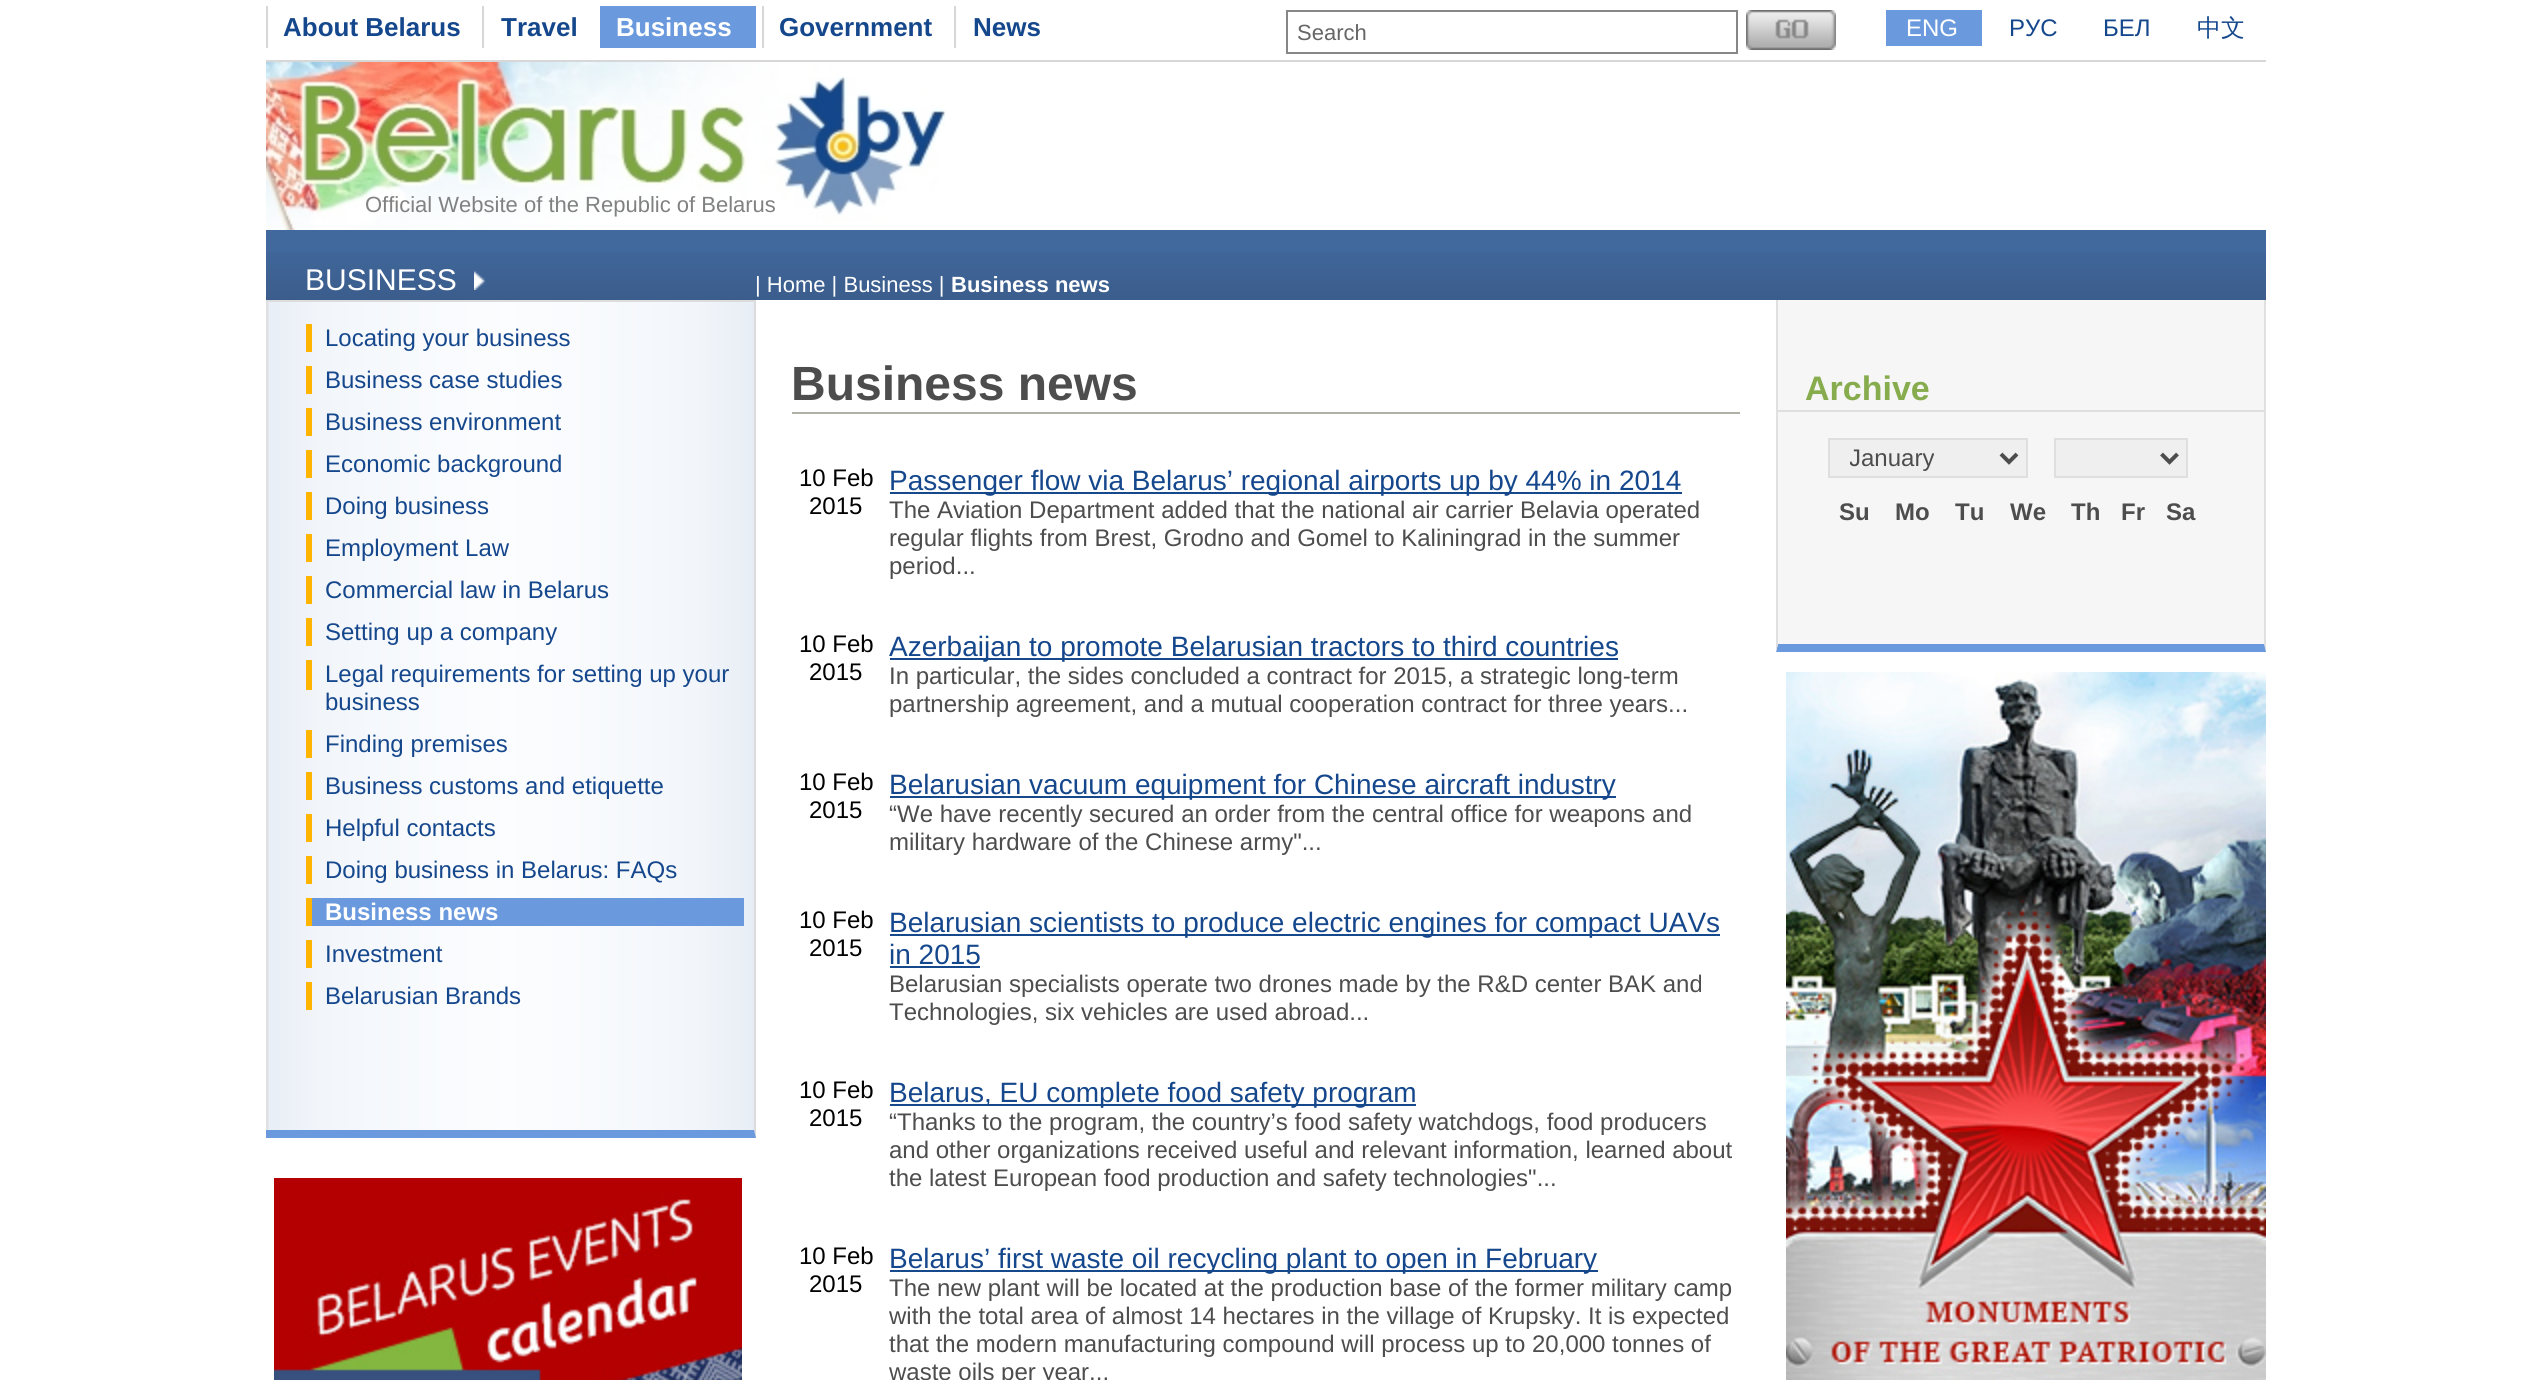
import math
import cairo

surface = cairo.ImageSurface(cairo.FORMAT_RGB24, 2529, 1380)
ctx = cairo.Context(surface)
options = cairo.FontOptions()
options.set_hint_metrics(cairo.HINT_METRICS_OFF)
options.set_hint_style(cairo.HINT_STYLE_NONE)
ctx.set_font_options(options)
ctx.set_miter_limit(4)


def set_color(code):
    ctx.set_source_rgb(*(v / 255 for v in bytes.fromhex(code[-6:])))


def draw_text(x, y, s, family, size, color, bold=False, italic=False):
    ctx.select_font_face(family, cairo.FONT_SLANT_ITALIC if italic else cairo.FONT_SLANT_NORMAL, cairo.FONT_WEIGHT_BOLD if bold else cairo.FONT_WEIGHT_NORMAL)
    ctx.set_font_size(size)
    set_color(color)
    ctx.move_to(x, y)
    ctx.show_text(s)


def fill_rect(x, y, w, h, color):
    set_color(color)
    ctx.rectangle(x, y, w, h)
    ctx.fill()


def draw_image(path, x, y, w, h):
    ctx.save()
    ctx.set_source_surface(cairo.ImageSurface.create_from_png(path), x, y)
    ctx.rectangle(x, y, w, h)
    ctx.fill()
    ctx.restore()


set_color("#ffffff")
ctx.paint()
fill_rect(266, 60, 2000, 2, "#d7d7d7")
draw_text(283, 36, "About Belarus", "Liberation Sans", 26, "#15478c", bold=True)
fill_rect(266, 6, 2, 42, "#d7d7d7")
draw_text(501, 36, "Travel", "Liberation Sans", 26, "#15478c", bold=True)
fill_rect(482, 6, 2, 42, "#d7d7d7")
fill_rect(600, 6, 156, 42, "#6a9add")
draw_text(616, 36, "Business", "Liberation Sans", 26, "#ffffff", bold=True)
draw_text(779, 36, "Government", "Liberation Sans", 26, "#15478c", bold=True)
fill_rect(762, 6, 2, 42, "#d7d7d7")
draw_text(973, 36, "News", "Liberation Sans", 26, "#15478c", bold=True)
fill_rect(954, 6, 2, 42, "#d7d7d7")
ctx.rectangle(1287, 11, 450, 42)
set_color("#878787")
ctx.stroke()
draw_text(1297, 40, "Search", "Liberation Sans", 22, "#666666")
draw_image("assets/img1.png", 1746, 10, 90, 40)
fill_rect(1886, 10, 96, 36, "#6a9add")
draw_text(1906, 36, "ENG", "Liberation Sans", 24, "#ffffff")
draw_text(2009, 36, "РУС", "Liberation Sans", 24, "#15478c")
draw_text(2103, 36, "БЕЛ", "Liberation Sans", 24, "#15478c")
draw_text(2197, 36, "中文", "WenQuanYi Zen Hei Medium", 24, "#15478c")
draw_image("assets/img2.png", 266, 62, 680, 168)
draw_text(365, 212, "Official Website of the Republic of Belarus", "Liberation Sans", 22, "#818181")
fill_rect(266, 230, 2000, 22, "#42699e")
draw_image("assets/img3.png", 266, 252, 490, 48)
draw_text(305, 290, "BUSINESS", "Liberation Sans", 30, "#ffffff")
draw_image("assets/img4.png", 474, 270, 12, 20)
draw_image("assets/img5.png", 266, 302, 490, 836)
fill_rect(266, 300, 490, 2, "#dcdcdc")
ctx.new_path()
ctx.move_to(756, 300)
ctx.line_to(756, 1138)
ctx.line_to(754, 1130)
ctx.line_to(754, 302)
ctx.close_path()
ctx.fill()
set_color("#6a9add")
ctx.new_path()
ctx.move_to(756, 1138)
ctx.line_to(266, 1138)
ctx.line_to(266, 1130)
ctx.line_to(754, 1130)
ctx.close_path()
ctx.fill()
fill_rect(306, 324, 6, 28, "#ffb400")
draw_text(325, 346, "Locating your business", "Liberation Sans", 24, "#15478c")
fill_rect(306, 366, 6, 28, "#ffb400")
draw_text(325, 388, "Business case studies", "Liberation Sans", 24, "#15478c")
fill_rect(306, 408, 6, 28, "#ffb400")
draw_text(325, 430, "Business environment", "Liberation Sans", 24, "#15478c")
fill_rect(306, 450, 6, 28, "#ffb400")
draw_text(325, 472, "Economic background", "Liberation Sans", 24, "#15478c")
fill_rect(306, 492, 6, 28, "#ffb400")
draw_text(325, 514, "Doing business", "Liberation Sans", 24, "#15478c")
fill_rect(306, 534, 6, 28, "#ffb400")
draw_text(325, 556, "Employment Law", "Liberation Sans", 24, "#15478c")
fill_rect(306, 576, 6, 28, "#ffb400")
draw_text(325, 598, "Commercial law in Belarus", "Liberation Sans", 24, "#15478c")
fill_rect(306, 618, 6, 28, "#ffb400")
draw_text(325, 640, "Setting up a company", "Liberation Sans", 24, "#15478c")
fill_rect(306, 660, 6, 30, "#ffb400")
draw_text(325, 682, "Legal requirements for setting up your", "Liberation Sans", 24, "#15478c")
draw_text(325, 710, "business", "Liberation Sans", 24, "#15478c")
fill_rect(306, 730, 6, 28, "#ffb400")
draw_text(325, 752, "Finding premises", "Liberation Sans", 24, "#15478c")
fill_rect(306, 772, 6, 28, "#ffb400")
draw_text(325, 794, "Business customs and etiquette", "Liberation Sans", 24, "#15478c")
fill_rect(306, 814, 6, 28, "#ffb400")
draw_text(325, 836, "Helpful contacts", "Liberation Sans", 24, "#15478c")
fill_rect(306, 856, 6, 28, "#ffb400")
draw_text(325, 878, "Doing business in Belarus: FAQs", "Liberation Sans", 24, "#15478c")
fill_rect(312, 898, 432, 28, "#6a9add")
fill_rect(306, 898, 6, 28, "#ffb400")
draw_text(325, 920, "Business news", "Liberation Sans", 24, "#ffffff", bold=True)
fill_rect(306, 940, 6, 28, "#ffb400")
draw_text(325, 962, "Investment", "Liberation Sans", 24, "#15478c")
fill_rect(306, 982, 6, 28, "#ffb400")
draw_text(325, 1004, "Belarusian Brands", "Liberation Sans", 24, "#15478c")
draw_image("assets/img6.png", 274, 1178, 468, 202)
draw_image("assets/img7.png", 756, 252, 1510, 48)
draw_text(755, 292, "| Home | Business |", "Liberation Sans", 22, "#ffffff")
draw_text(951, 292, "Business news", "Liberation Sans", 22, "#ffffff", bold=True)
fill_rect(792, 412, 948, 2, "#b0b0a6")
draw_text(791, 400, "Business news", "Liberation Sans", 48, "#4d4d4d", bold=True)
draw_text(799, 486, "10 Feb", "Liberation Sans", 24, "#000000")
draw_text(809, 514, "2015", "Liberation Sans", 24, "#000000")
fill_rect(890, 492, 792, 2, "#16488c")
draw_text(889, 490, "Passenger flow via Belarus’ regional airports up by 44% in 2014", "Liberation Sans", 28, "#15478c")
draw_text(889, 518, "The Aviation Department added that the national air carrier Belavia operated", "Liberation Sans", 24, "#4d4d4d")
draw_text(889, 546, "regular flights from Brest, Grodno and Gomel to Kaliningrad in the summer", "Liberation Sans", 24, "#4d4d4d")
draw_text(889, 574, "period...", "Liberation Sans", 24, "#4d4d4d")
draw_text(799, 652, "10 Feb", "Liberation Sans", 24, "#000000")
draw_text(809, 680, "2015", "Liberation Sans", 24, "#000000")
fill_rect(890, 658, 728, 2, "#16488c")
draw_text(889, 656, "Azerbaijan to promote Belarusian tractors to third countries", "Liberation Sans", 28, "#15478c")
draw_text(889, 684, "In particular, the sides concluded a contract for 2015, a strategic long-term", "Liberation Sans", 24, "#4d4d4d")
draw_text(889, 712, "partnership agreement, and a mutual cooperation contract for three years...", "Liberation Sans", 24, "#4d4d4d")
draw_text(799, 790, "10 Feb", "Liberation Sans", 24, "#000000")
draw_text(809, 818, "2015", "Liberation Sans", 24, "#000000")
fill_rect(890, 796, 726, 2, "#16488c")
draw_text(889, 794, "Belarusian vacuum equipment for Chinese aircraft industry", "Liberation Sans", 28, "#15478c")
draw_text(889, 822, "“We have recently secured an order from the central office for weapons and", "Liberation Sans", 24, "#4d4d4d")
draw_text(889, 850, "military hardware of the Chinese army\"...", "Liberation Sans", 24, "#4d4d4d")
draw_text(799, 928, "10 Feb", "Liberation Sans", 24, "#000000")
draw_text(809, 956, "2015", "Liberation Sans", 24, "#000000")
fill_rect(890, 934, 830, 2, "#16488c")
draw_text(889, 932, "Belarusian scientists to produce electric engines for compact UAVs", "Liberation Sans", 28, "#15478c")
draw_text(889, 964, "in 2015", "Liberation Sans", 28, "#15478c")
fill_rect(890, 966, 90, 2, "#16488c")
draw_text(889, 992, "Belarusian specialists operate two drones made by the R&D center BAK and", "Liberation Sans", 24, "#4d4d4d")
draw_text(889, 1020, "Technologies, six vehicles are used abroad...", "Liberation Sans", 24, "#4d4d4d")
draw_text(799, 1098, "10 Feb", "Liberation Sans", 24, "#000000")
draw_text(809, 1126, "2015", "Liberation Sans", 24, "#000000")
fill_rect(890, 1104, 526, 2, "#16488c")
draw_text(889, 1102, "Belarus, EU complete food safety program", "Liberation Sans", 28, "#15478c")
draw_text(889, 1130, "“Thanks to the program, the country’s food safety watchdogs, food producers", "Liberation Sans", 24, "#4d4d4d")
draw_text(889, 1158, "and other organizations received useful and relevant information, learned about", "Liberation Sans", 24, "#4d4d4d")
draw_text(889, 1186, "the latest European food production and safety technologies\"...", "Liberation Sans", 24, "#4d4d4d")
draw_text(799, 1264, "10 Feb", "Liberation Sans", 24, "#000000")
draw_text(809, 1292, "2015", "Liberation Sans", 24, "#000000")
fill_rect(890, 1270, 708, 2, "#16488c")
draw_text(889, 1268, "Belarus’ first waste oil recycling plant to open in February", "Liberation Sans", 28, "#15478c")
draw_text(889, 1296, "The new plant will be located at the production base of the former military camp", "Liberation Sans", 24, "#4d4d4d")
draw_text(889, 1324, "with the total area of almost 14 hectares in the village of Krupsky. It is expected", "Liberation Sans", 24, "#4d4d4d")
draw_text(889, 1352, "that the modern manufacturing compound will process up to 20,000 tonnes of", "Liberation Sans", 24, "#4d4d4d")
draw_text(889, 1380, "waste oils per year...", "Liberation Sans", 24, "#4d4d4d")
fill_rect(1776, 300, 490, 352, "#f6f6f6")
set_color("#e0e0e0")
ctx.new_path()
ctx.move_to(2266, 300)
ctx.line_to(2266, 652)
ctx.line_to(2264, 644)
ctx.line_to(2264, 300)
ctx.close_path()
ctx.fill()
set_color("#6a9add")
ctx.new_path()
ctx.move_to(2266, 652)
ctx.line_to(1776, 652)
ctx.line_to(1778, 644)
ctx.line_to(2264, 644)
ctx.close_path()
ctx.fill()
set_color("#e0e0e0")
ctx.new_path()
ctx.move_to(1776, 652)
ctx.line_to(1776, 300)
ctx.line_to(1778, 300)
ctx.line_to(1778, 644)
ctx.close_path()
ctx.fill()
fill_rect(1778, 410, 486, 2, "#dfdfdf")
draw_text(1805, 400, "Archive", "Liberation Sans", 34, "#86ac4d", bold=True)
set_color("#efefef")
ctx.rectangle(1829, 439, 198, 38)
ctx.fill_preserve()
set_color("#dfdfdf")
ctx.stroke()
ctx.new_path()
ctx.move_to(2001, 454)
ctx.line_to(2009, 462)
ctx.line_to(2017, 454)
set_color("#4d4d4d")
ctx.set_line_width(4)
ctx.stroke()
ctx.save()
ctx.rectangle(1850, 442, 144, 32)
ctx.clip()
draw_text(1849, 466, "January", "Liberation Sans", 24, "#4d4d4d")
ctx.restore()
set_color("#efefef")
ctx.rectangle(2055, 439, 132, 38)
ctx.fill_preserve()
set_color("#dfdfdf")
ctx.set_line_width(2)
ctx.stroke()
ctx.new_path()
ctx.move_to(2161.5, 454)
ctx.line_to(2169.5, 462)
ctx.line_to(2177.5, 454)
set_color("#4d4d4d")
ctx.set_line_width(4)
ctx.stroke()
draw_text(1839, 520, "Su", "Liberation Sans", 24, "#4d4d4d", bold=True)
draw_text(1895, 520, "Mo", "Liberation Sans", 24, "#4d4d4d", bold=True)
draw_text(1955, 520, "Tu", "Liberation Sans", 24, "#4d4d4d", bold=True)
draw_text(2010, 520, "We", "Liberation Sans", 24, "#4d4d4d", bold=True)
draw_text(2071, 520, "Th", "Liberation Sans", 24, "#4d4d4d", bold=True)
draw_text(2121, 520, "Fr", "Liberation Sans", 24, "#4d4d4d", bold=True)
draw_text(2166, 520, "Sa", "Liberation Sans", 24, "#4d4d4d", bold=True)
draw_image("assets/img8.png", 1786, 672, 480, 708)
surface.write_to_png("output.png")
